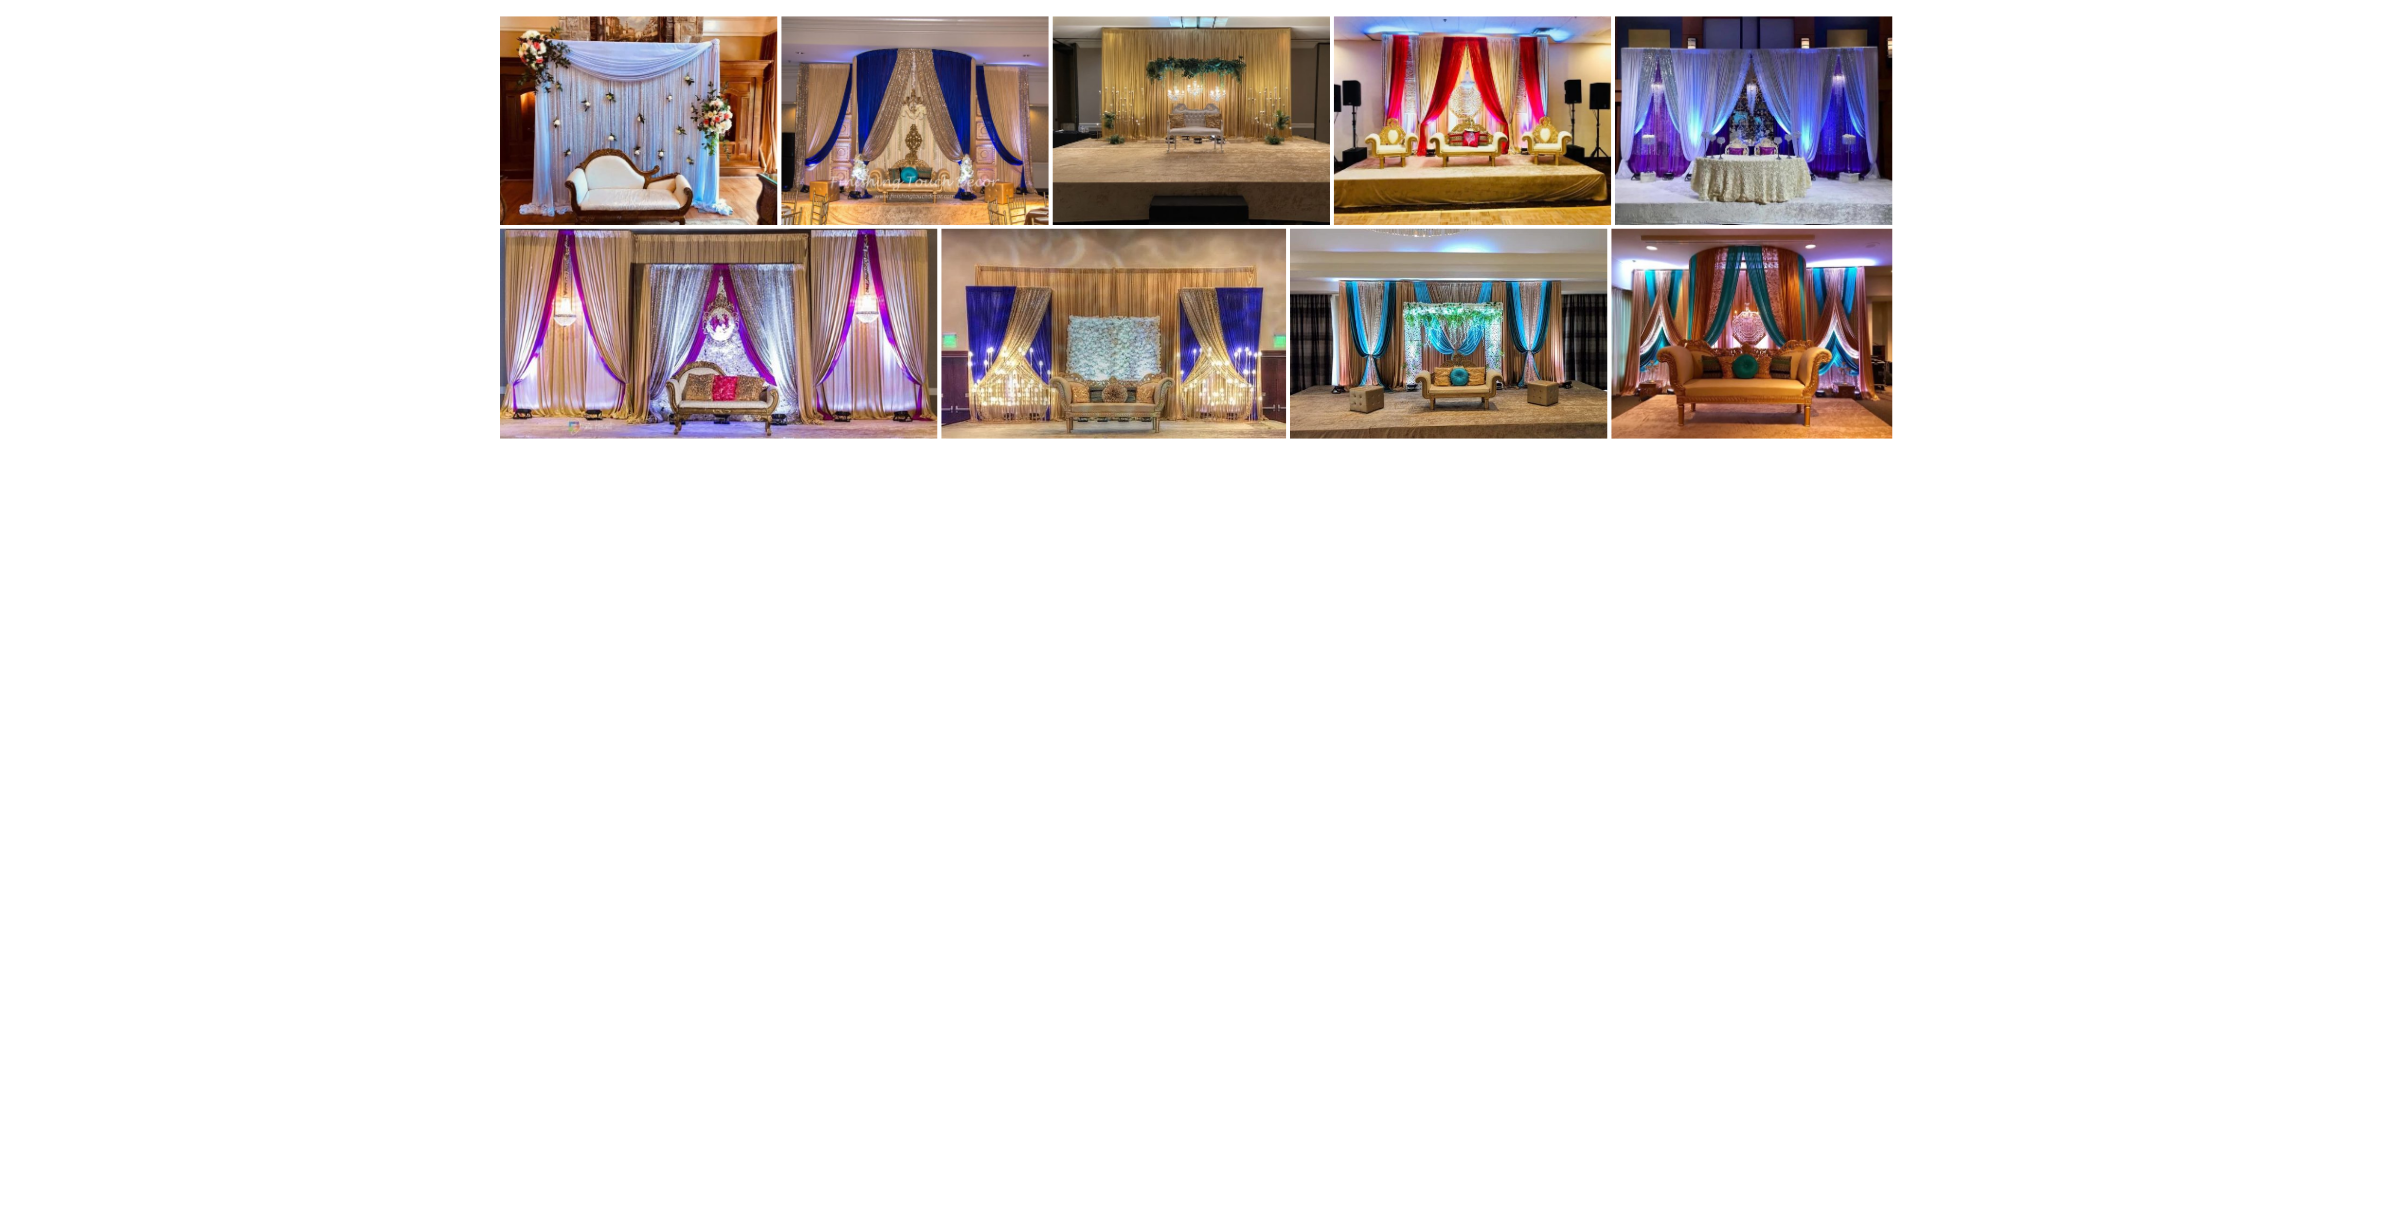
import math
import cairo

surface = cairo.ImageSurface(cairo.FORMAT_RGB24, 2392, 1217)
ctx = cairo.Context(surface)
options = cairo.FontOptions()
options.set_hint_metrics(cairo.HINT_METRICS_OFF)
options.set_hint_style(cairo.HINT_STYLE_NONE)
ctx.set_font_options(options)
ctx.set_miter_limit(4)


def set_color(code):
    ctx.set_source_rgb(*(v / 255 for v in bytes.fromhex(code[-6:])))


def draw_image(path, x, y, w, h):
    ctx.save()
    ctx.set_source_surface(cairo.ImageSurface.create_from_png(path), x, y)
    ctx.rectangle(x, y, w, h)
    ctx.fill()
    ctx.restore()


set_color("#ffffff")
ctx.paint()
draw_image("assets/img1.png", 500, 16, 278, 209)
draw_image("assets/img2.png", 781, 16, 268, 209)
draw_image("assets/img3.png", 1052, 16, 278, 209)
draw_image("assets/img4.png", 1333, 16, 279, 209)
draw_image("assets/img5.png", 1615, 16, 278, 209)
draw_image("assets/img6.png", 500, 228, 438, 211)
draw_image("assets/img7.png", 941, 228, 346, 211)
draw_image("assets/img8.png", 1290, 228, 318, 211)
draw_image("assets/img9.png", 1611, 228, 282, 211)
surface.write_to_png("output.png")
